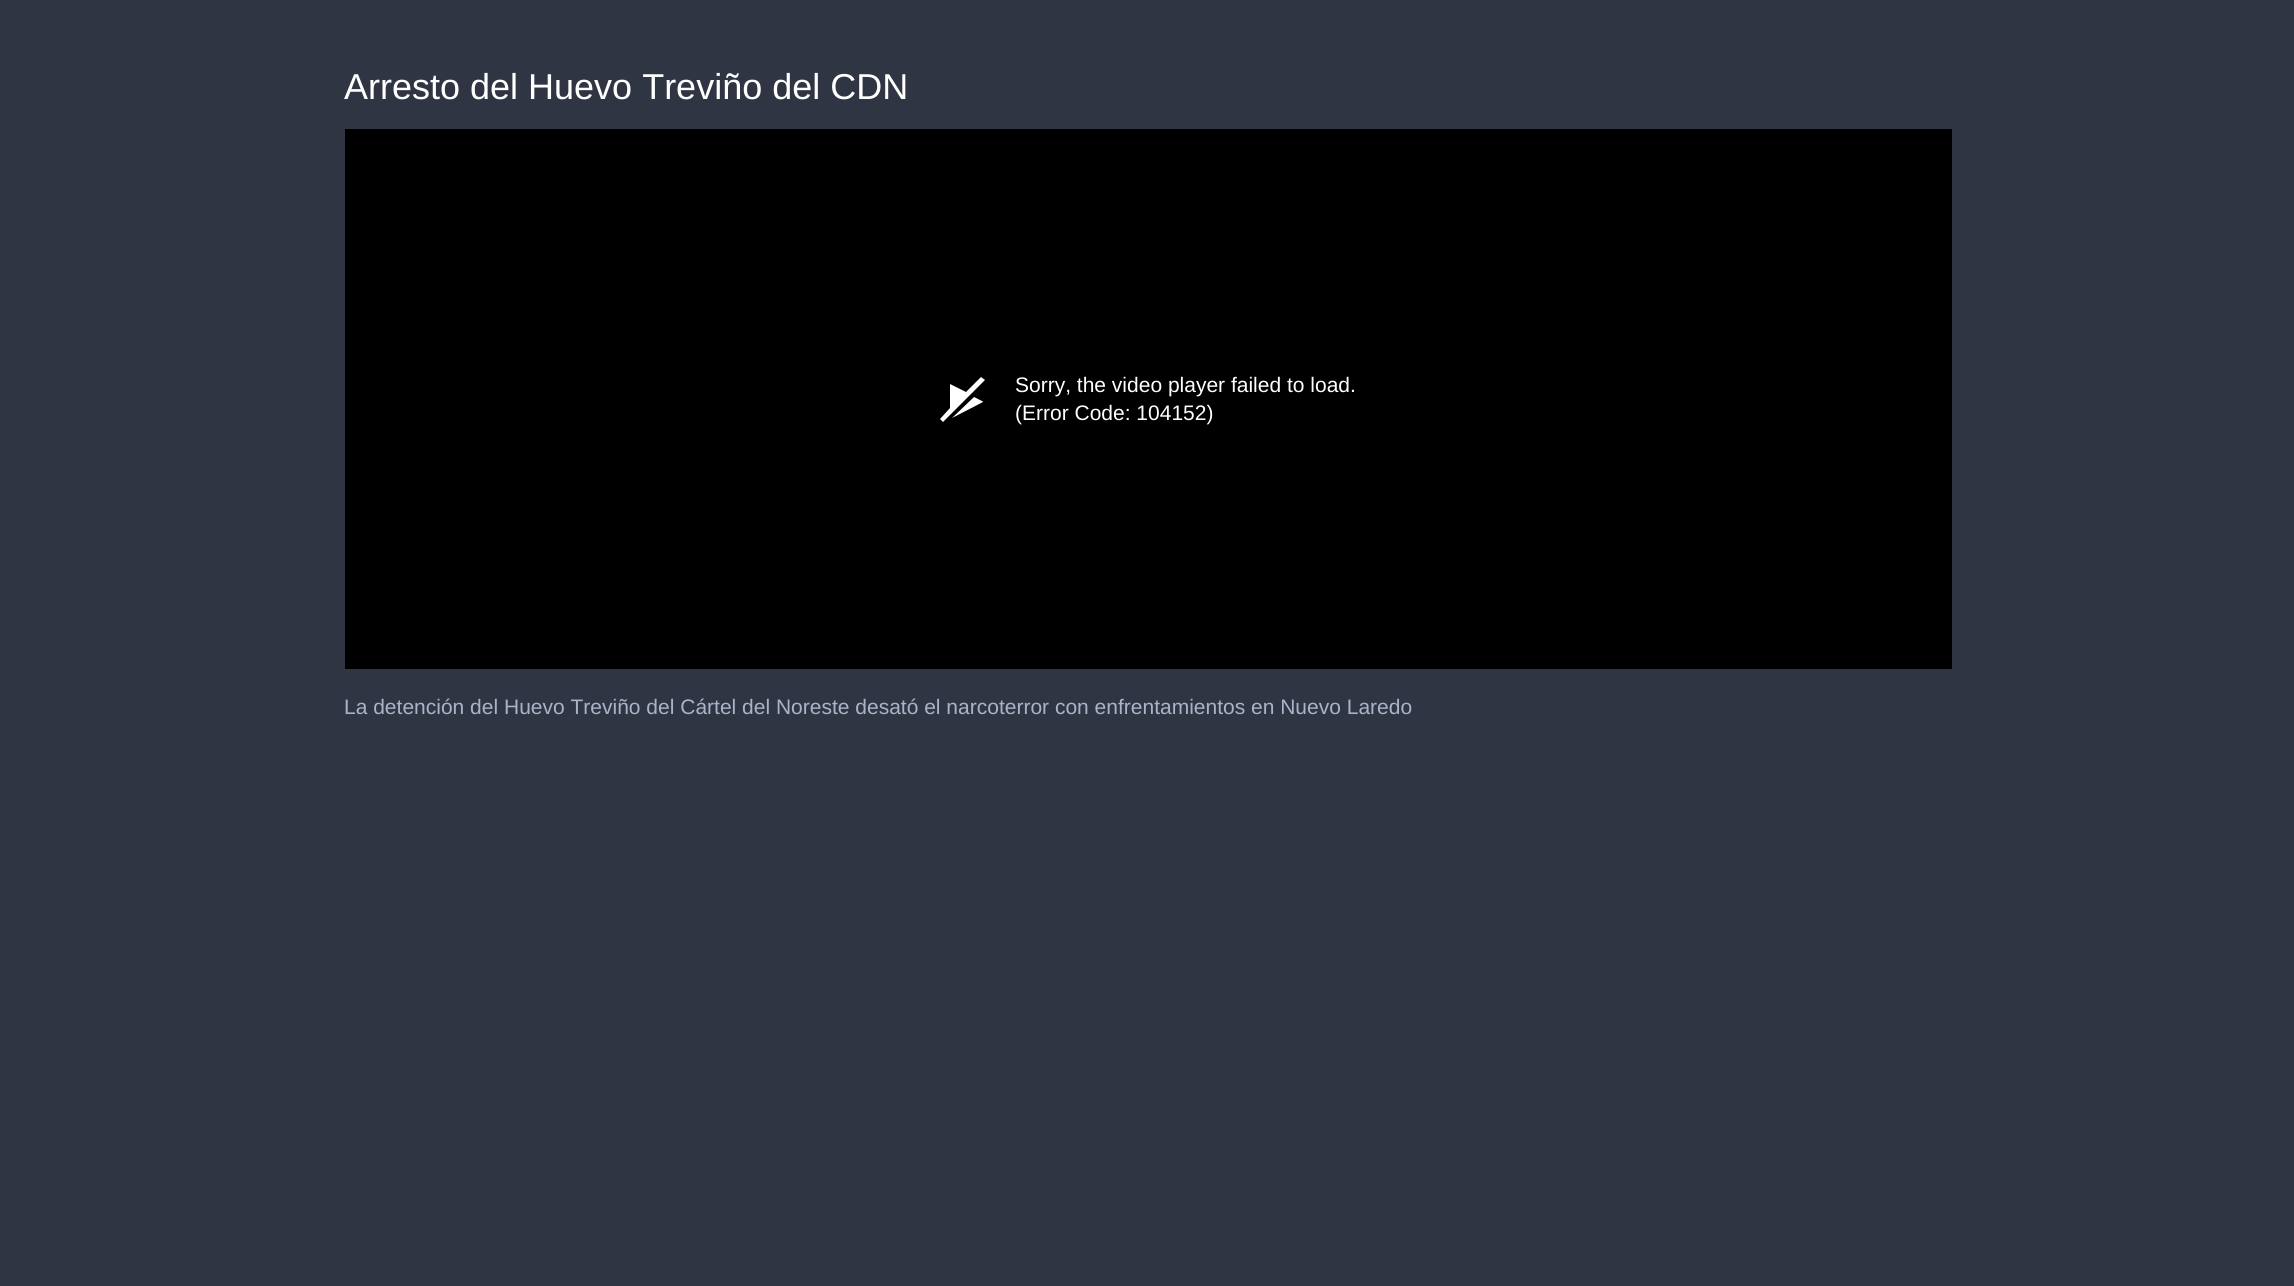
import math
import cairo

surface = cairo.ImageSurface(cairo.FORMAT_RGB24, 2294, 1286)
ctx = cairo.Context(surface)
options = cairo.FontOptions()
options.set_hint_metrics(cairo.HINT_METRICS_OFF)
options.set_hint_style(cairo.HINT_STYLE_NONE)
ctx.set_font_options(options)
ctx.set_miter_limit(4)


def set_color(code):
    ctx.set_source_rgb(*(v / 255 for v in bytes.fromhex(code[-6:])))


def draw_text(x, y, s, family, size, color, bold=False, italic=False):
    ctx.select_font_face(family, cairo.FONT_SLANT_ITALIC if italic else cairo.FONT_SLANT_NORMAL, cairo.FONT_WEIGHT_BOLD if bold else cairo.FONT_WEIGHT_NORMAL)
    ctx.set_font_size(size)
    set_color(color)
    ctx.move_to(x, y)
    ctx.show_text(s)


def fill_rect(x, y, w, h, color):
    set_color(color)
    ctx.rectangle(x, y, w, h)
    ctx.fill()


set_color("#2f3542")
ctx.paint()
draw_text(344, 99, "Arresto del Huevo Treviño del CDN", "Liberation Sans", 36, "#ffffff")
fill_rect(345, 129, 1607, 540, "#000000")
set_color("#ffffff")
ctx.new_path()
ctx.move_to(983, 402)
ctx.line_to(952, 418)
ctx.line_to(974, 397)
ctx.curve_to(982, 401, 984, 402, 983, 402)
ctx.close_path()
ctx.move_to(981, 377)
ctx.line_to(966, 392)
ctx.line_to(950, 384)
ctx.line_to(950, 408)
ctx.line_to(940, 419)
ctx.line_to(943, 422)
ctx.line_to(985, 380)
ctx.close_path()
ctx.fill()
draw_text(1015, 392, "Sorry, the video player failed to load.", "Liberation Sans", 21, "#ffffff")
draw_text(1015, 420, "(Error Code: 104152)", "Liberation Sans", 21, "#ffffff")
draw_text(344, 714, "La detención del Huevo Treviño del Cártel del Noreste desató el narcoterror con enfrentamientos en Nuevo Laredo", "Liberation Sans", 21, "#aab4c8")
surface.write_to_png("output.png")
